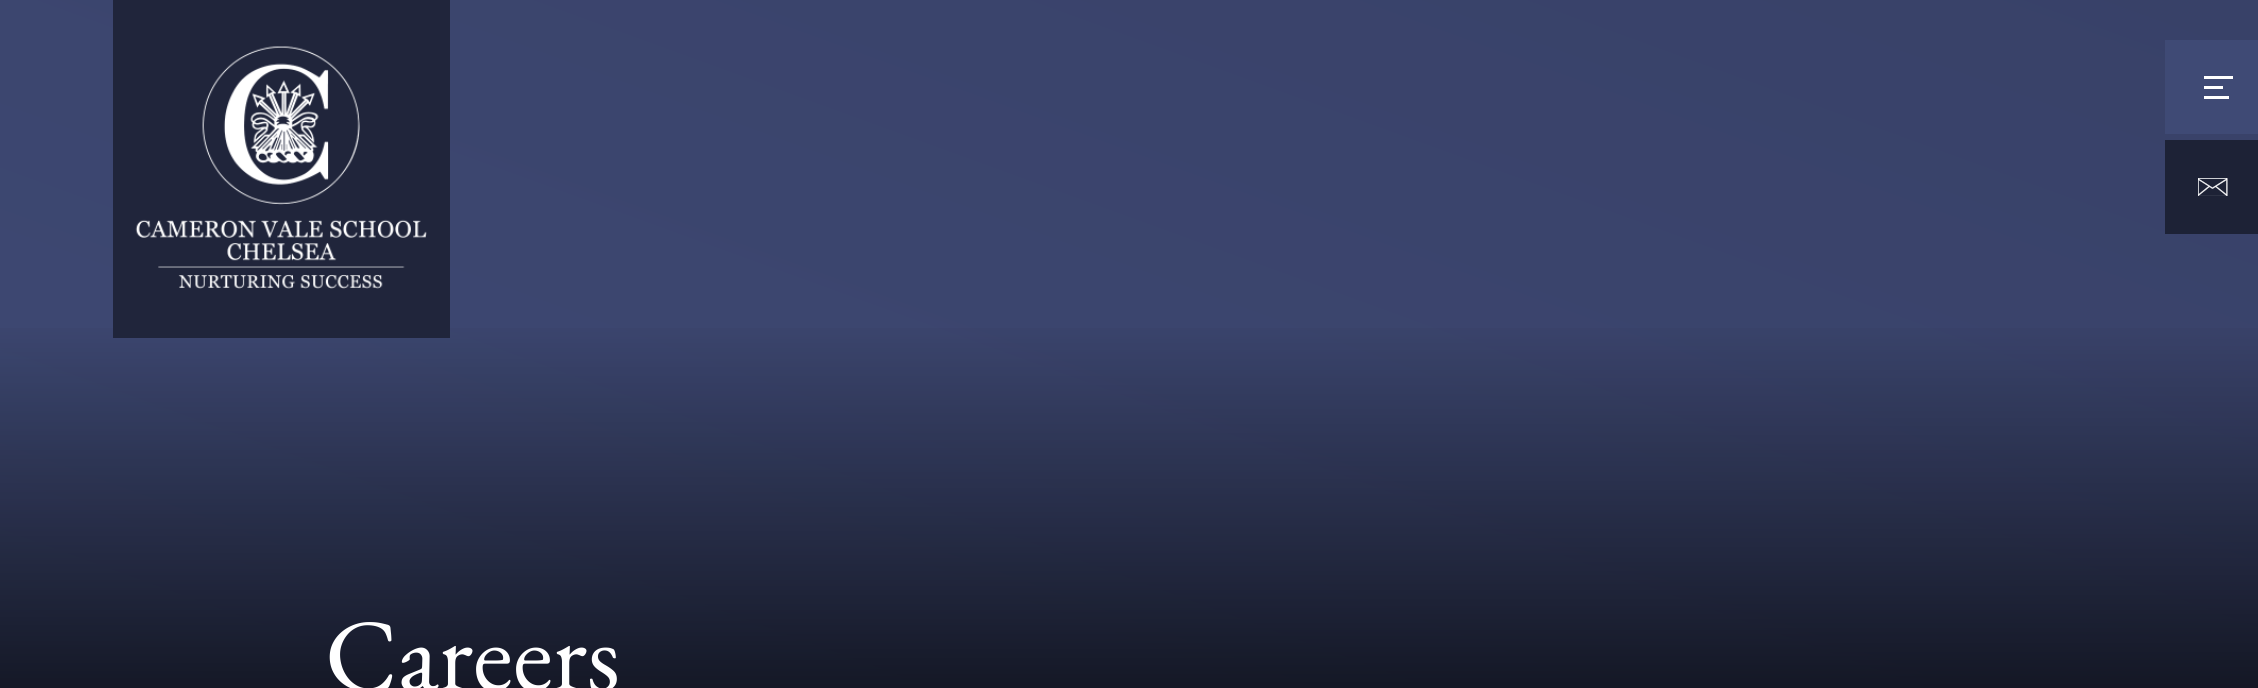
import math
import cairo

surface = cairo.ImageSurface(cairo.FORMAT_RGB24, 2258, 688)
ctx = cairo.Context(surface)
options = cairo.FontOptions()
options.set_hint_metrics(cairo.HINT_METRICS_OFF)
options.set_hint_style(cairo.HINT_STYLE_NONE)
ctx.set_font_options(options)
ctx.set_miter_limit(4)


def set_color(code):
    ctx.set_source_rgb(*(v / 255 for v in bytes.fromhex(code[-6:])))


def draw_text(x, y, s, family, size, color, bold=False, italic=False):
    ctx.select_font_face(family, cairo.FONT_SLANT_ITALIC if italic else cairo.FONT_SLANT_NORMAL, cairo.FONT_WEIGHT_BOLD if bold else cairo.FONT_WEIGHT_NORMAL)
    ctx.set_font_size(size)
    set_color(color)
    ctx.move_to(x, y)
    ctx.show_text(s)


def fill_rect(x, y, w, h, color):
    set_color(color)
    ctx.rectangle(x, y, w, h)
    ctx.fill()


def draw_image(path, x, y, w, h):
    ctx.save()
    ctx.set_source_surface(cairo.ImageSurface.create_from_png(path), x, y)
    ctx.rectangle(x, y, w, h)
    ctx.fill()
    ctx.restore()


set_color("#ffffff")
ctx.paint()
gradient = cairo.LinearGradient(1388, -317, 870, 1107)
gradient.add_color_stop_rgba(0, 0.22, 0.255, 0.408, 1)
gradient.add_color_stop_rgba(1, 0.247, 0.29, 0.459, 1)
ctx.set_source(gradient)
ctx.rectangle(0, 0, 2258, 688)
ctx.fill()
gradient = cairo.LinearGradient(1129, 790, 1129, 316)
gradient.add_color_stop_rgba(0, 0, 0, 0, 0.85)
gradient.add_color_stop_rgba(1, 0, 0, 0, 0)
ctx.set_source(gradient)
ctx.rectangle(0, 328, 2258, 360)
ctx.fill()
ctx.set_source_rgba(0.114, 0.133, 0.212, 0.9)
ctx.rectangle(113, 0, 337, 338)
ctx.fill()
draw_image("assets/img1.png", 135, 46, 292, 243)
fill_rect(2165, 40, 93, 94, "#3f4a75")
fill_rect(2204, 86, 19, 3, "#ffffff")
fill_rect(2204, 76, 29, 3, "#ffffff")
fill_rect(2204, 96, 25, 3, "#ffffff")
fill_rect(2165, 140, 93, 94, "#1d2236")
draw_image("assets/img2.png", 2198, 178, 30, 18)
draw_text(325, 690, "Careers", "EB Garamond", 102.5, "#ffffff")
surface.write_to_png("output.png")
